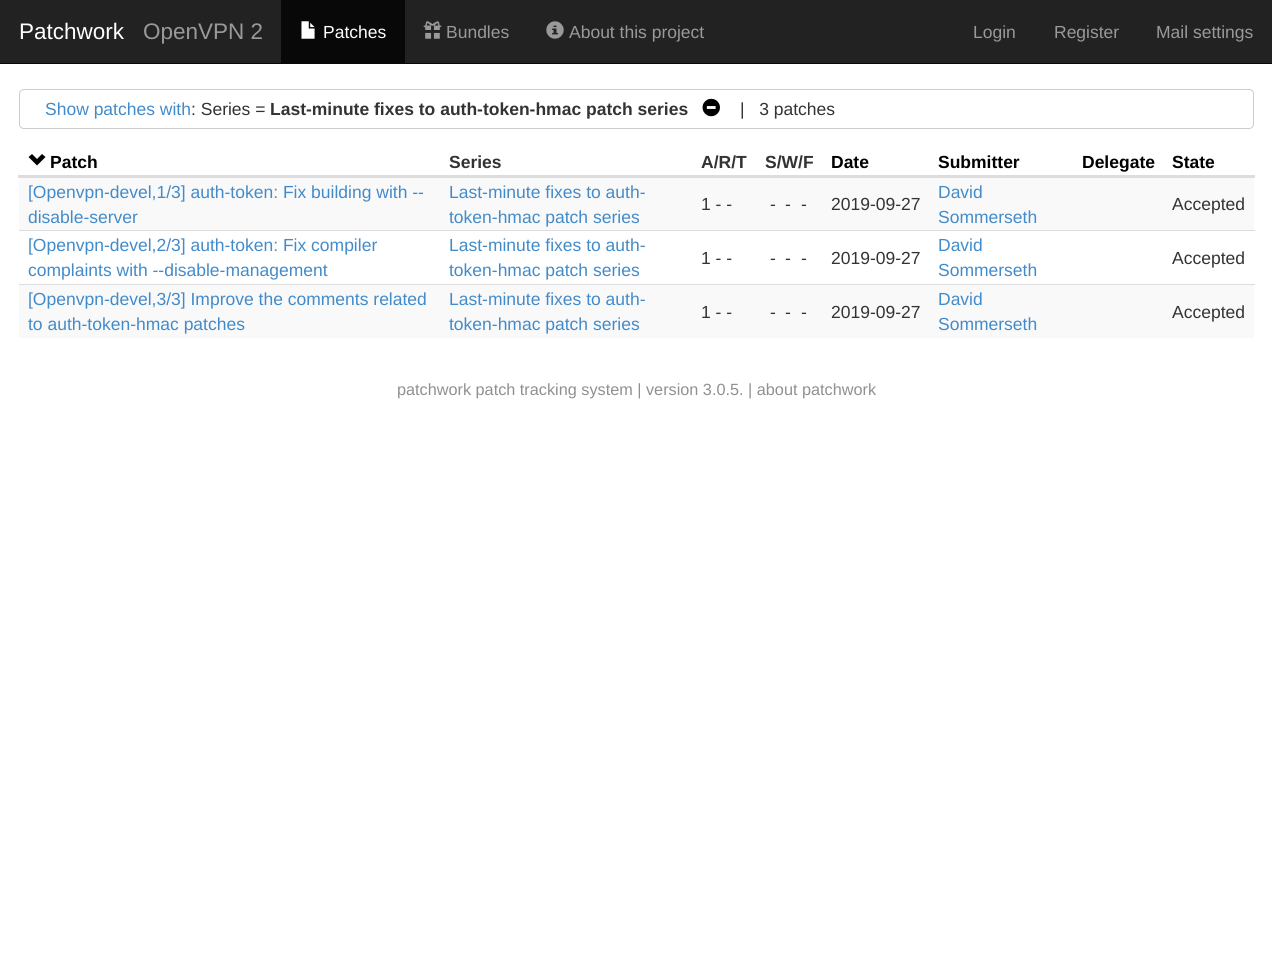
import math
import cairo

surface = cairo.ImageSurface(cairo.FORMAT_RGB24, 1272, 965)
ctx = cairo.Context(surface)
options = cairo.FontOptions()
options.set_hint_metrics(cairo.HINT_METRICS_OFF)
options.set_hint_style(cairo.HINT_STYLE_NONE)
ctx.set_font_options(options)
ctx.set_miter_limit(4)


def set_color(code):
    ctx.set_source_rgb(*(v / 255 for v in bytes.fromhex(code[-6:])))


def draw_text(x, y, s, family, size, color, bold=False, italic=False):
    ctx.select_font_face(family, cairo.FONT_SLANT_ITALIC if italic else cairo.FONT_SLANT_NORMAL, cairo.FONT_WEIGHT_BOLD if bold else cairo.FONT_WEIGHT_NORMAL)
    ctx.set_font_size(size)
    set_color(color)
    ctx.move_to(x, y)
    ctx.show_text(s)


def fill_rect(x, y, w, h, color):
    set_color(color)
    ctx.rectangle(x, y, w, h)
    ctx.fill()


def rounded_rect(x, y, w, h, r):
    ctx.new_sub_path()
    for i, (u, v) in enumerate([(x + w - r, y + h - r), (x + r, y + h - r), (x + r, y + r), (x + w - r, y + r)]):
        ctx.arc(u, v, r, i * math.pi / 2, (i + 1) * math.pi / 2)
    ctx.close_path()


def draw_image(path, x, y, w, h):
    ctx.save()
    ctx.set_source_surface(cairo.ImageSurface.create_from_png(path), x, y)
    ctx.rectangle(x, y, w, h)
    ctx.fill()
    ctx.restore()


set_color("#ffffff")
ctx.paint()
fill_rect(0, 0, 1272, 63, "#222222")
fill_rect(0, 63, 1272, 1, "#080808")
draw_text(19, 39, "Patchwork", "Liberation Sans", 22.5, "#ffffff")
draw_text(143, 39, "OpenVPN 2", "Liberation Sans", 22.5, "#999999")
fill_rect(281, 0, 124, 63, "#080808")
draw_image("assets/img1.png", 301, 21, 14, 18)
draw_text(323, 38, "Patches", "Liberation Sans", 17.5, "#ffffff")
draw_image("assets/img2.png", 423, 21, 19, 18)
draw_text(446, 38, "Bundles", "Liberation Sans", 17.5, "#999999")
draw_image("assets/img3.png", 546, 21, 18, 18)
draw_text(569, 38, "About this project", "Liberation Sans", 17.5, "#999999")
draw_text(973, 38, "Login", "Liberation Sans", 17.5, "#999999")
draw_text(1054, 38, "Register", "Liberation Sans", 17.5, "#999999")
draw_text(1156, 38, "Mail settings", "Liberation Sans", 17.5, "#999999")
rounded_rect(19.5, 89.5, 1234, 39, 4.5)
set_color("#cccccc")
ctx.set_line_width(1)
ctx.stroke()
draw_text(45, 115, "Show patches with", "Liberation Sans", 17.5, "#428bca")
draw_text(191, 115, ": Series =", "Liberation Sans", 17.5, "#333333")
draw_text(270, 115, "Last-minute fixes to auth-token-hmac patch series", "Liberation Sans", 17.5, "#333333", bold=True)
draw_image("assets/img4.png", 702, 98, 18, 19)
draw_text(740, 115, "|   3 patches", "Liberation Sans", 17.5, "#333333")
set_color("#000000")
ctx.new_path()
ctx.move_to(28.5, 157)
ctx.line_to(37, 165.5)
ctx.line_to(45.5, 157)
ctx.line_to(42, 154)
ctx.line_to(37, 159)
ctx.line_to(32, 154)
ctx.close_path()
ctx.fill()
draw_text(50, 168, "Patch", "Liberation Sans", 17.5, "#000000", bold=True)
draw_text(449, 168, "Series", "Liberation Sans", 17.5, "#333333", bold=True)
draw_text(701, 168, "A/R/T", "Liberation Sans", 17.5, "#333333", bold=True)
draw_text(765, 168, "S/W/F", "Liberation Sans", 17.5, "#333333", bold=True)
draw_text(831, 168, "Date", "Liberation Sans", 17.5, "#000000", bold=True)
draw_text(938, 168, "Submitter", "Liberation Sans", 17.5, "#000000", bold=True)
draw_text(1082, 168, "Delegate", "Liberation Sans", 17.5, "#000000", bold=True)
fill_rect(18, 175, 1237, 3, "#dddddd")
draw_text(1172, 168, "State", "Liberation Sans", 17.5, "#000000", bold=True)
fill_rect(19, 178, 1235, 52, "#f9f9f9")
draw_text(28, 198, "[Openvpn-devel,1/3] auth-token: Fix building with --", "Liberation Sans", 17.5, "#428bca")
draw_text(28, 223, "disable-server", "Liberation Sans", 17.5, "#428bca")
draw_text(449, 198, "Last-minute fixes to auth-", "Liberation Sans", 17.5, "#428bca")
draw_text(449, 223, "token-hmac patch series", "Liberation Sans", 17.5, "#428bca")
draw_text(701, 210, "1 - -", "Liberation Sans", 17.5, "#333333")
draw_text(770, 210, "-", "Liberation Sans", 17.5, "#333333")
draw_text(785, 210, "-", "Liberation Sans", 17.5, "#333333")
draw_text(801, 210, "-", "Liberation Sans", 17.5, "#333333")
draw_text(831, 210, "2019-09-27", "Liberation Sans", 17.5, "#333333")
draw_text(938, 198, "David", "Liberation Sans", 17.5, "#428bca")
draw_text(938, 223, "Sommerseth", "Liberation Sans", 17.5, "#428bca")
draw_text(1172, 210, "Accepted", "Liberation Sans", 17.5, "#333333")
draw_text(28, 251, "[Openvpn-devel,2/3] auth-token: Fix compiler", "Liberation Sans", 17.5, "#428bca")
draw_text(28, 276, "complaints with --disable-management", "Liberation Sans", 17.5, "#428bca")
draw_text(449, 251, "Last-minute fixes to auth-", "Liberation Sans", 17.5, "#428bca")
draw_text(449, 276, "token-hmac patch series", "Liberation Sans", 17.5, "#428bca")
draw_text(701, 264, "1 - -", "Liberation Sans", 17.5, "#333333")
draw_text(770, 264, "-", "Liberation Sans", 17.5, "#333333")
draw_text(785, 264, "-", "Liberation Sans", 17.5, "#333333")
draw_text(801, 264, "-", "Liberation Sans", 17.5, "#333333")
draw_text(831, 264, "2019-09-27", "Liberation Sans", 17.5, "#333333")
draw_text(938, 251, "David", "Liberation Sans", 17.5, "#428bca")
draw_text(938, 276, "Sommerseth", "Liberation Sans", 17.5, "#428bca")
fill_rect(19, 230, 1236, 1, "#dddddd")
draw_text(1172, 264, "Accepted", "Liberation Sans", 17.5, "#333333")
fill_rect(19, 285, 1235, 53, "#f9f9f9")
draw_text(28, 305, "[Openvpn-devel,3/3] Improve the comments related", "Liberation Sans", 17.5, "#428bca")
draw_text(28, 330, "to auth-token-hmac patches", "Liberation Sans", 17.5, "#428bca")
draw_text(449, 305, "Last-minute fixes to auth-", "Liberation Sans", 17.5, "#428bca")
draw_text(449, 330, "token-hmac patch series", "Liberation Sans", 17.5, "#428bca")
draw_text(701, 318, "1 - -", "Liberation Sans", 17.5, "#333333")
draw_text(770, 318, "-", "Liberation Sans", 17.5, "#333333")
draw_text(785, 318, "-", "Liberation Sans", 17.5, "#333333")
draw_text(801, 318, "-", "Liberation Sans", 17.5, "#333333")
draw_text(831, 318, "2019-09-27", "Liberation Sans", 17.5, "#333333")
draw_text(938, 305, "David", "Liberation Sans", 17.5, "#428bca")
draw_text(938, 330, "Sommerseth", "Liberation Sans", 17.5, "#428bca")
fill_rect(19, 284, 1236, 1, "#dddddd")
draw_text(1172, 318, "Accepted", "Liberation Sans", 17.5, "#333333")
draw_text(397, 395, "patchwork patch tracking system | version 3.0.5. | about patchwork", "Liberation Sans", 16.25, "#909090")
surface.write_to_png("output.png")
